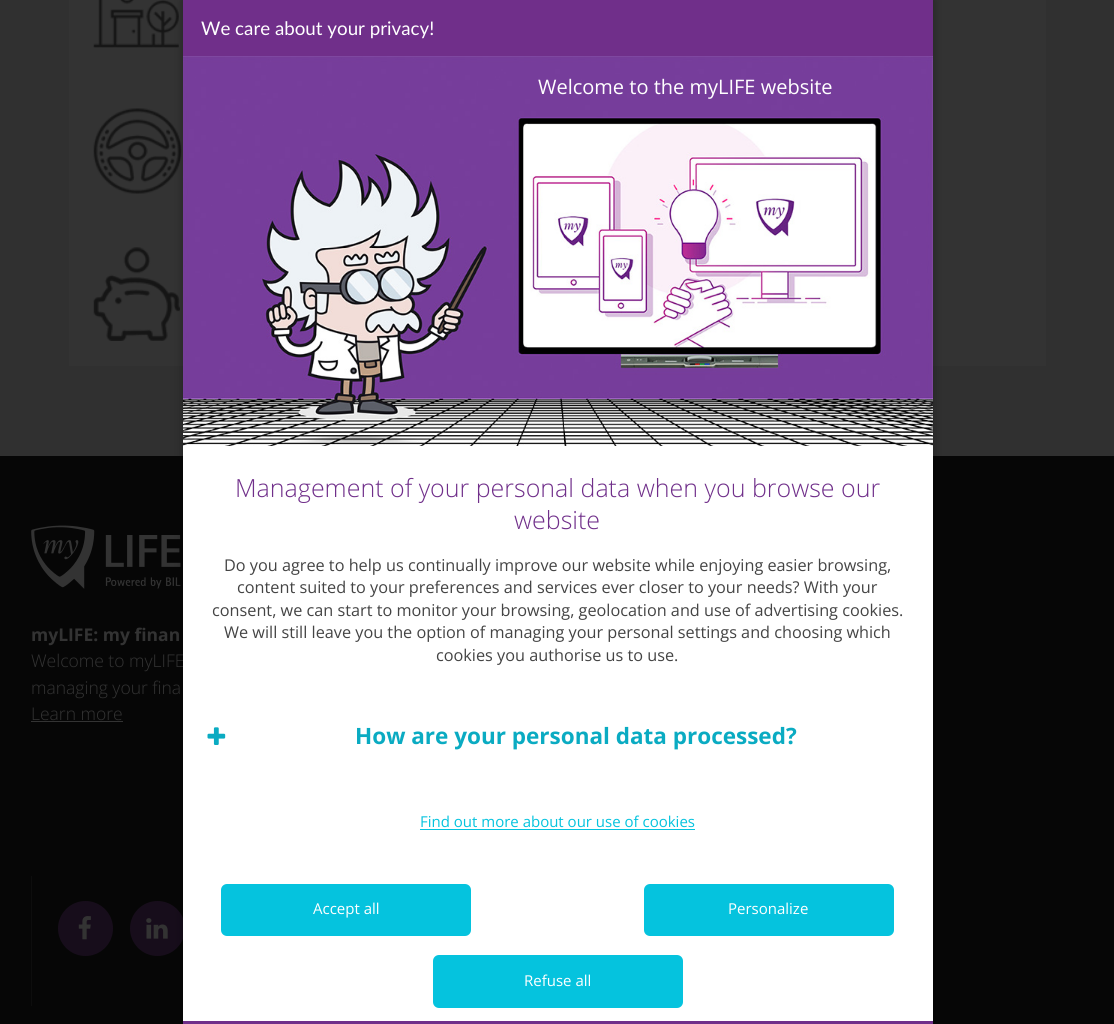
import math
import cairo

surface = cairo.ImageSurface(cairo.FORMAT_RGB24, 1114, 1024)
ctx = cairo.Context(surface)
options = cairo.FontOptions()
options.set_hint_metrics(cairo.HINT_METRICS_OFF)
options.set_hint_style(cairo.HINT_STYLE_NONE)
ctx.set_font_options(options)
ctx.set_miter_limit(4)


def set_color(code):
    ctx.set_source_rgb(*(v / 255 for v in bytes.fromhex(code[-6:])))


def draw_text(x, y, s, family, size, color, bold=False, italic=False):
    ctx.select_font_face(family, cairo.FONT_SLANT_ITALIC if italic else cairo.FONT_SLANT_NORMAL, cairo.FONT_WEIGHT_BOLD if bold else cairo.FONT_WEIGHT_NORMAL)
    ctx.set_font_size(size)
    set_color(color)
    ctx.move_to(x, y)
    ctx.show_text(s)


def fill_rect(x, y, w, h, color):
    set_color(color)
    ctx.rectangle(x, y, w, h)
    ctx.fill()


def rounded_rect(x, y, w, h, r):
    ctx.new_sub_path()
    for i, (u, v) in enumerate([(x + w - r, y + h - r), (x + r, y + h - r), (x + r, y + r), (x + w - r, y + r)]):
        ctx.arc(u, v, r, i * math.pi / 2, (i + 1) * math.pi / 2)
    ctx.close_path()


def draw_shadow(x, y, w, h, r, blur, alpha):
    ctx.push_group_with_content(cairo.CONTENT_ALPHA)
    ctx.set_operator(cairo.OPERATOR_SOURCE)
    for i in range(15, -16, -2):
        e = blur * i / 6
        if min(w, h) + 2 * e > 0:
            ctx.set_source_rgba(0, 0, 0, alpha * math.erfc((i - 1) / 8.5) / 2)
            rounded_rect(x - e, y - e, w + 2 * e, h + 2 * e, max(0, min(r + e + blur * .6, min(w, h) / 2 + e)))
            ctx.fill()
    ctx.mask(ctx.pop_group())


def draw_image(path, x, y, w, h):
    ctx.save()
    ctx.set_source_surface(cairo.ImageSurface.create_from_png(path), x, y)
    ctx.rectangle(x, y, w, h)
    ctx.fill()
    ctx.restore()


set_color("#303030")
ctx.paint()
fill_rect(69, 0, 977, 366, "#333333")
draw_image("assets/img1.png", 93, 0, 86, 48)
draw_image("assets/img2.png", 93, 108, 89, 86)
draw_image("assets/img3.png", 93, 247, 87, 94)
fill_rect(0, 456, 1114, 568, "#060606")
draw_image("assets/img4.png", 31, 525, 150, 64)
draw_text(31, 641, "myLIFE: my finan", "Open Sans", 17.5, "#333333", bold=True)
draw_text(31, 667, "Welcome to myLIFE", "Open Sans Light", 17.5, "#333333")
draw_text(31, 694, "managing your fina", "Open Sans Light", 17.5, "#333333")
draw_text(31, 720, "Learn more", "Open Sans Light", 17.5, "#333333")
fill_rect(31, 721, 92, 1, "#333333")
fill_rect(31, 876, 1, 130, "#0d0d0d")
set_color("#170d1b")
ctx.new_path()
ctx.arc(85.5, 928.5, 27.5, 0, 2 * math.pi)
ctx.fill()
draw_image("assets/img5.png", 78, 916, 13, 24)
ctx.arc(157.5, 928.5, 27.5, 0, 2 * math.pi)
ctx.fill()
draw_image("assets/img6.png", 146, 918, 22, 21)
set_color("#000000")
draw_shadow(183, 0, 750, 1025, 0, 5, 0.3)
fill_rect(183, 446, 750, 575, "#ffffff")
fill_rect(183, 1021, 750, 3, "#702f8a")
fill_rect(183, 0, 750, 56, "#702f8a")
draw_text(201, 35, "We care about your privacy!", "Lato", 18.75, "#ffffff")
draw_image("assets/img7.png", 183, 56, 750, 390)
draw_text(538, 94, "Welcome to the myLIFE website", "Open Sans", 20, "#ffffff")
draw_text(235, 497, "Management of your personal data when you browse our", "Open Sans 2 Light", 25, "#702f8a")
draw_text(514, 529, "website", "Open Sans 2 Light", 25, "#702f8a")
draw_text(224, 571, "Do you agree to help us continually improve our website while enjoying easier browsing,", "Open Sans", 16.25, "#444444")
draw_text(237, 593, "content suited to your preferences and services ever closer to your needs? With your", "Open Sans", 16.25, "#444444")
draw_text(212, 616, "consent, we can start to monitor your browsing, geolocation and use of advertising cookies.", "Open Sans", 16.25, "#444444")
draw_text(224, 638, "We will still leave you the option of managing your personal settings and choosing which", "Open Sans", 16.25, "#444444")
draw_text(436, 661, "cookies you authorise us to use.", "Open Sans", 16.25, "#444444")
draw_image("assets/img8.png", 207, 727, 19, 18)
draw_text(355, 744, "How are your personal data processed?", "Open Sans", 22.5, "#0aabc2", bold=True)
draw_text(420, 827, "Find out more about our use of cookies", "Open Sans", 15, "#05c3de")
fill_rect(420, 829, 275, 1, "#05c3de")
rounded_rect(222.5, 885.5, 247, 49, 4.5)
ctx.fill_preserve()
ctx.set_line_width(3)
ctx.stroke()
draw_text(313, 914, "Accept all", "Open Sans", 15, "#ffffff")
set_color("#05c3de")
rounded_rect(645.5, 885.5, 247, 49, 4.5)
ctx.fill_preserve()
ctx.stroke()
draw_text(728, 914, "Personalize", "Open Sans", 15, "#ffffff")
set_color("#05c3de")
rounded_rect(434.5, 956.5, 247, 50, 4.5)
ctx.fill_preserve()
ctx.stroke()
draw_text(524, 986, "Refuse all", "Open Sans", 15, "#ffffff")
surface.write_to_png("output.png")
